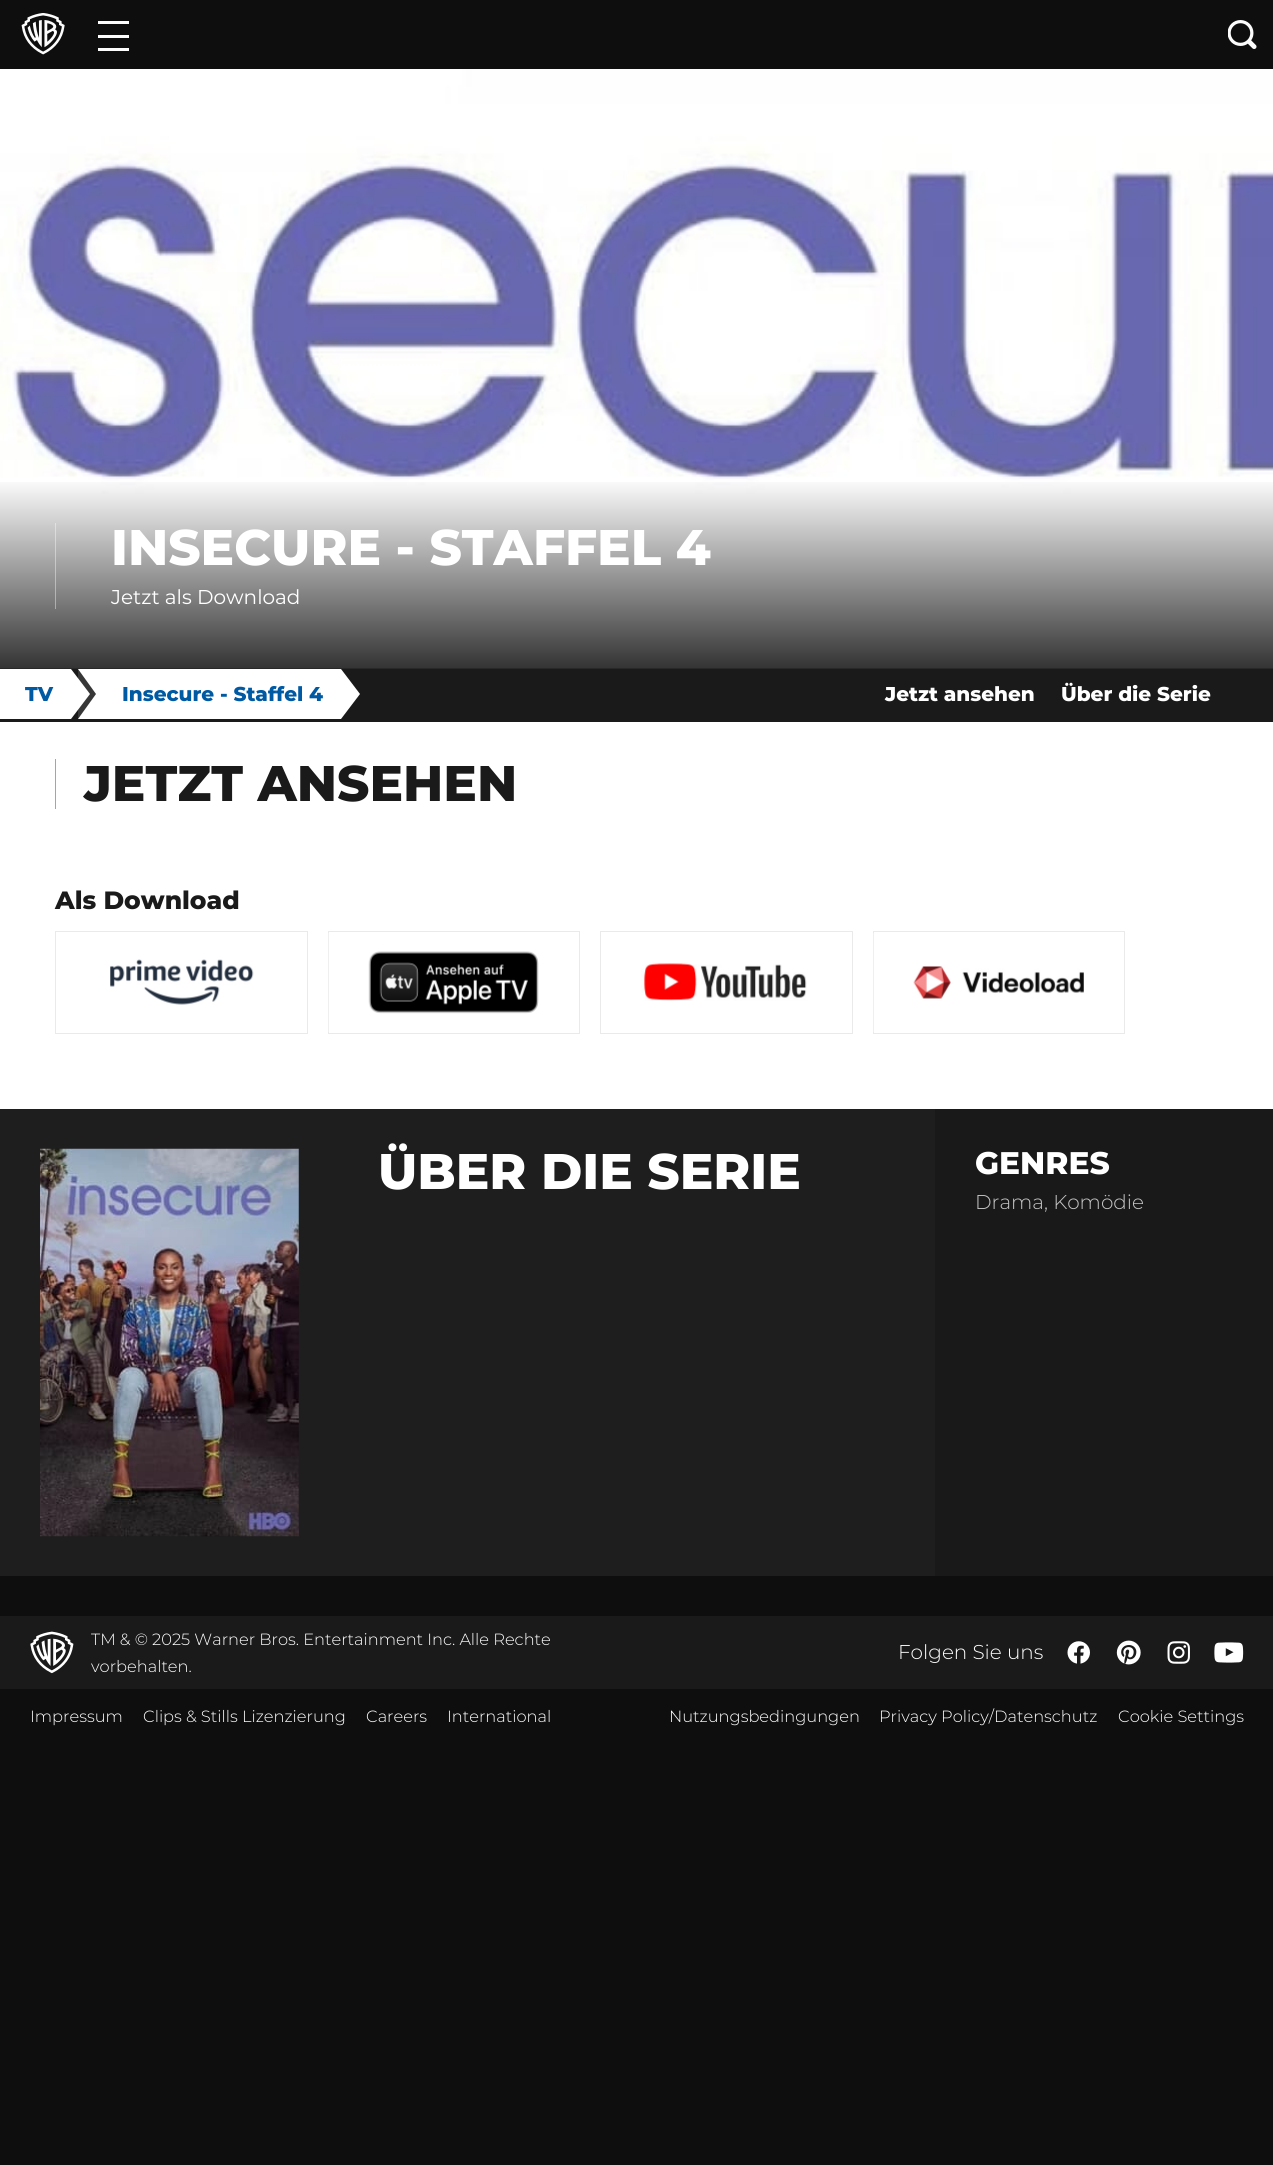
import math
import cairo

surface = cairo.ImageSurface(cairo.FORMAT_RGB24, 1273, 2165)
ctx = cairo.Context(surface)
options = cairo.FontOptions()
options.set_hint_metrics(cairo.HINT_METRICS_OFF)
options.set_hint_style(cairo.HINT_STYLE_NONE)
ctx.set_font_options(options)
ctx.set_miter_limit(4)


def set_color(code):
    ctx.set_source_rgb(*(v / 255 for v in bytes.fromhex(code[-6:])))


def draw_text(x, y, s, family, size, color, bold=False, italic=False):
    ctx.select_font_face(family, cairo.FONT_SLANT_ITALIC if italic else cairo.FONT_SLANT_NORMAL, cairo.FONT_WEIGHT_BOLD if bold else cairo.FONT_WEIGHT_NORMAL)
    ctx.set_font_size(size)
    set_color(color)
    ctx.move_to(x, y)
    ctx.show_text(s)


def fill_rect(x, y, w, h, color):
    set_color(color)
    ctx.rectangle(x, y, w, h)
    ctx.fill()


def draw_image(path, x, y, w, h):
    ctx.save()
    ctx.set_source_surface(cairo.ImageSurface.create_from_png(path), x, y)
    ctx.rectangle(x, y, w, h)
    ctx.fill()
    ctx.restore()


set_color("#0e0e0e")
ctx.paint()
draw_image("assets/img3.png", 0, 68, 1273, 601)
ctx.set_source_rgba(0.055, 0.055, 0.055, 0.99)
ctx.rectangle(0, 68, 1273, 1)
ctx.fill()
draw_image("assets/img1.png", 21, 13, 44, 42)
fill_rect(98, 21, 31, 3, "#fdfdfd")
fill_rect(98, 35, 31, 3, "#fdfdfd")
fill_rect(98, 48, 31, 3, "#fdfdfd")
draw_image("assets/img2.png", 1228, 20, 29, 29)
gradient = cairo.LinearGradient(637, 477, 637, 669)
gradient.add_color_stop_rgba(0, 0, 0, 0, 0)
gradient.add_color_stop_rgba(1, 0, 0, 0, 0.8)
ctx.set_source(gradient)
ctx.rectangle(0, 482, 1273, 187)
ctx.fill()
ctx.set_source_rgba(1, 1, 1, 0.4)
ctx.rectangle(55, 523, 1, 86)
ctx.fill()
draw_text(111, 565, "INSECURE - STAFFEL 4", "Montserrat ExtraBold", 50, "#ffffff")
draw_text(111, 604, "Jetzt als Download", "Montserrat", 20, "#ffffff")
fill_rect(71, 669, 1202, 50, "#1a1a1a")
fill_rect(0, 719, 1273, 3, "#1a1a1a")
fill_rect(0, 669, 71, 50, "#ffffff")
draw_text(25, 701, "TV", "Montserrat ExtraBold", 20, "#005aa3")
fill_rect(78, 669, 263, 50, "#ffffff")
set_color("#373737")
ctx.new_path()
ctx.move_to(78, 719)
ctx.line_to(78, 669)
ctx.line_to(96, 694)
ctx.close_path()
ctx.fill()
set_color("#ffffff")
ctx.new_path()
ctx.move_to(71, 719)
ctx.line_to(71, 669)
ctx.line_to(90, 694)
ctx.close_path()
ctx.fill()
draw_text(122, 701, "Insecure - Staffel 4", "Montserrat ExtraBold", 20, "#005aa3")
set_color("#ffffff")
ctx.new_path()
ctx.move_to(341, 719)
ctx.line_to(341, 669)
ctx.line_to(360, 694)
ctx.close_path()
ctx.fill()
draw_text(885, 701, "Jetzt ansehen", "Montserrat ExtraBold", 20, "#ffffff")
draw_text(1061, 701, "Über die Serie", "Montserrat ExtraBold", 20, "#ffffff")
fill_rect(0, 722, 1273, 387, "#ffffff")
fill_rect(55, 759, 1, 50, "#a5a5a5")
draw_text(84, 801, "JETZT ANSEHEN", "Montserrat ExtraBold", 50, "#1a1a1a")
draw_text(55, 909, "Als Download", "Montserrat ExtraBold", 25, "#1a1a1a")
ctx.rectangle(55.5, 931.5, 252, 102)
set_color("#eaeaea")
ctx.set_line_width(1)
ctx.stroke()
draw_image("assets/img4.png", 110, 959, 144, 46)
ctx.rectangle(328.5, 931.5, 251, 102)
ctx.stroke()
draw_image("assets/img5.png", 328, 933, 211, 99)
ctx.rectangle(600.5, 931.5, 252, 102)
ctx.stroke()
draw_image("assets/img6.png", 641, 962, 166, 39)
ctx.rectangle(873.5, 931.5, 251, 102)
ctx.stroke()
draw_image("assets/img7.png", 873, 933, 211, 99)
fill_rect(0, 1109, 935, 467, "#1e1e1e")
draw_image("assets/img8.png", 40, 1148, 259, 389)
draw_text(378, 1189, "ÜBER DIE SERIE", "Montserrat ExtraBold", 50, "#ffffff")
fill_rect(935, 1109, 338, 467, "#191919")
draw_text(975, 1174, "GENRES", "Montserrat ExtraBold", 31.25, "#ffffff")
draw_text(975, 1209, "Drama, Komödie", "Montserrat Light", 20, "#c6c6c6")
fill_rect(0, 1616, 1273, 73, "#1a1a1a")
draw_image("assets/img9.png", 30, 1631, 44, 43)
draw_text(91, 1645, "TM & © 2025 Warner Bros. Entertainment Inc. Alle Rechte", "Montserrat Light", 16.25, "#ffffff")
draw_text(91, 1672, "vorbehalten.", "Montserrat Light", 16.25, "#ffffff")
draw_text(898, 1659, "Folgen Sie uns", "Montserrat Light", 20, "#ffffff")
draw_image("assets/img10.png", 1067, 1641, 23, 23)
draw_image("assets/img11.png", 1116, 1640, 25, 25)
draw_image("assets/img12.png", 1167, 1641, 23, 23)
draw_image("assets/img13.png", 1214, 1642, 30, 21)
draw_text(30, 1722, "Impressum", "Montserrat Light", 16.25, "#ffffff")
draw_text(143, 1722, "Clips & Stills Lizenzierung", "Montserrat Light", 16.25, "#ffffff")
draw_text(366, 1722, "Careers", "Montserrat Light", 16.25, "#ffffff")
draw_text(447, 1722, "International", "Montserrat Light", 16.25, "#ffffff")
draw_text(669, 1722, "Nutzungsbedingungen", "Montserrat Light", 16.25, "#ffffff")
draw_text(879, 1722, "Privacy Policy/Datenschutz", "Montserrat Light", 16.25, "#ffffff")
draw_text(1118, 1722, "Cookie Settings", "Montserrat Light", 16.25, "#ffffff")
surface.write_to_png("output.png")
